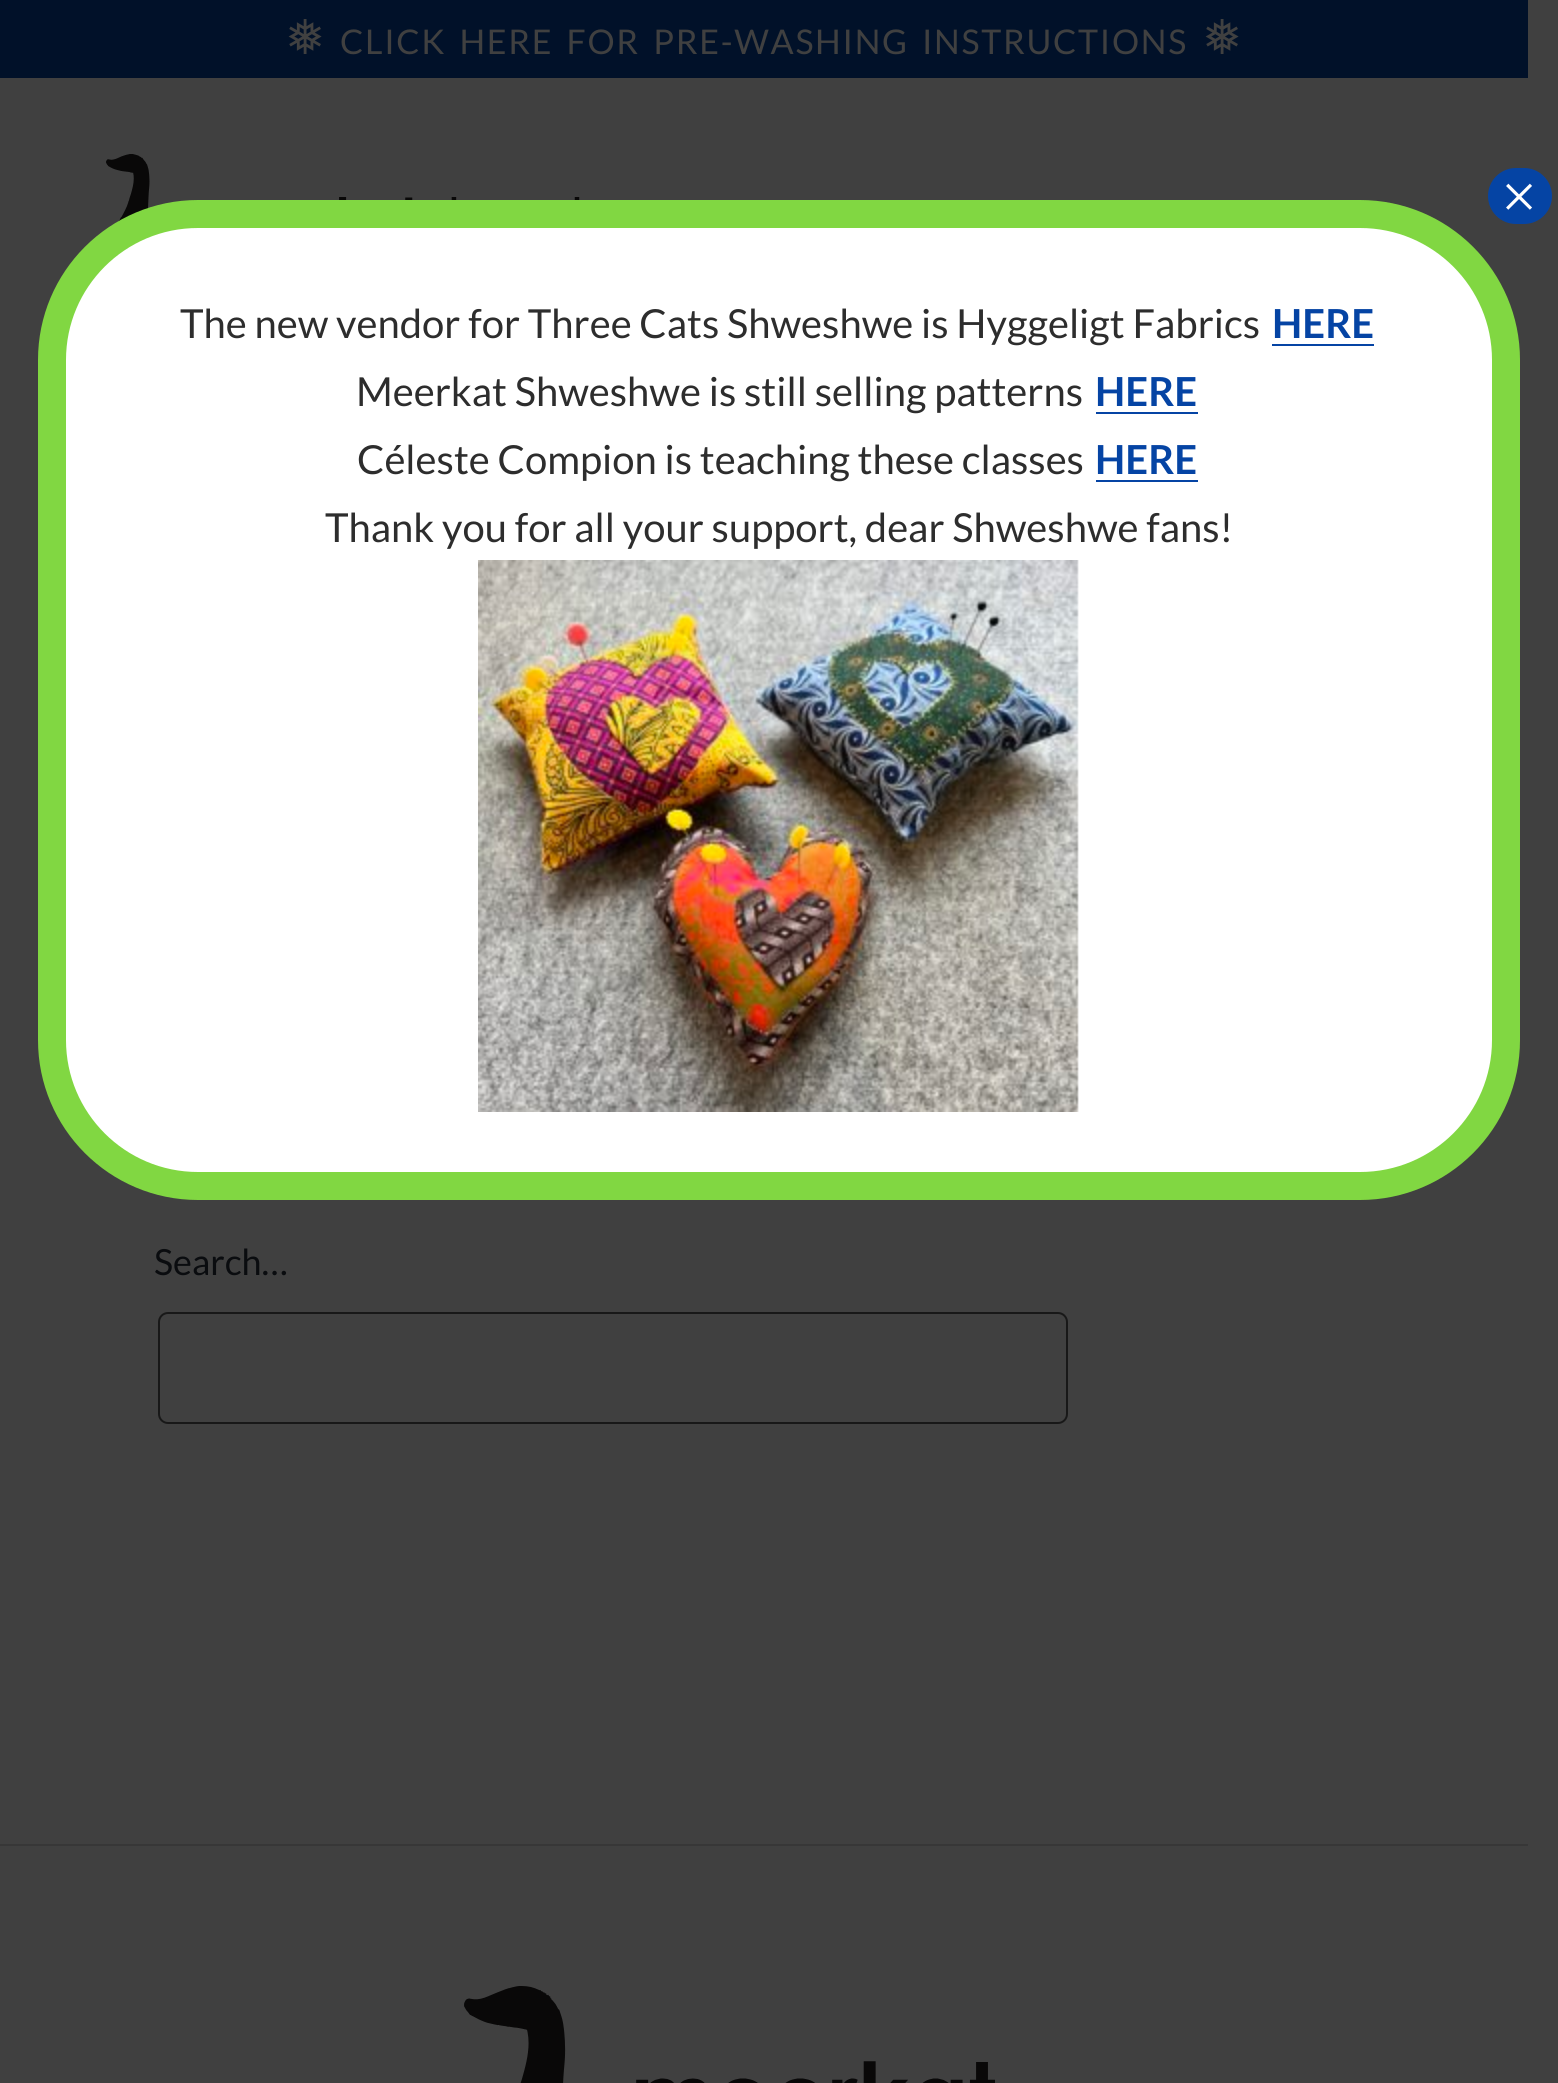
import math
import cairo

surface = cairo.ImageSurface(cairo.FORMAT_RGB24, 1558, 2083)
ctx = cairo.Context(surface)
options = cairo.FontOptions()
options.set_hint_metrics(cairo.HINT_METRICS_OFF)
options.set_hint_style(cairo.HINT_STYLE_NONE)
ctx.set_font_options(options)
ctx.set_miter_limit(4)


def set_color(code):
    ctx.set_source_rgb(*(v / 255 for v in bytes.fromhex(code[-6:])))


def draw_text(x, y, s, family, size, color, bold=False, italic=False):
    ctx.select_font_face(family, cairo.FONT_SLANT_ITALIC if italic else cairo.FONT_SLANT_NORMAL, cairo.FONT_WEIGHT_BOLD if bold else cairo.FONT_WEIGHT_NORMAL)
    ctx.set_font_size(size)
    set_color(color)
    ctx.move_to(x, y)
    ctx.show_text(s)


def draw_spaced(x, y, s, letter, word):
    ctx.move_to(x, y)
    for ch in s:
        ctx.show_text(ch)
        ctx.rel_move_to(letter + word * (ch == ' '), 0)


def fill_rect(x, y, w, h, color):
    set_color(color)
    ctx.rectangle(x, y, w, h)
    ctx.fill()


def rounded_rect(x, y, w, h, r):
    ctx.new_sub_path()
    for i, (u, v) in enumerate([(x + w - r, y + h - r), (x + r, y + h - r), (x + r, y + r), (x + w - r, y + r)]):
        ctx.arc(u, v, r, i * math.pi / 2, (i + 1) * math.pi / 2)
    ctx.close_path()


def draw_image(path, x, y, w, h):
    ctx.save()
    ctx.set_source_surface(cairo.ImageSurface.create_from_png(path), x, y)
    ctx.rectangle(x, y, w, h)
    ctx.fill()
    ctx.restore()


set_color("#404040")
ctx.paint()
fill_rect(0, 0, 1528, 78, "#011129")
ctx.select_font_face("DejaVu Sans")
ctx.set_font_size(48)
set_color("#404040")
draw_spaced(285, 54, "❅", 1.7, 0)
ctx.select_font_face("Lato")
ctx.set_font_size(34)
draw_spaced(340, 54, "CLICK HERE FOR PRE-WASHING INSTRUCTIONS", 1.7, 5)
ctx.select_font_face("DejaVu Sans")
ctx.set_font_size(48)
draw_spaced(1202, 54, "❅", 1.7, 0)
draw_image("assets/img1.png", 106, 154, 474, 68)
set_color("#ffffff")
rounded_rect(52, 214, 1454, 972, 146)
ctx.fill_preserve()
set_color("#81d742")
ctx.set_line_width(28)
ctx.stroke()
set_color("#0544a4")
rounded_rect(1488, 168, 64, 56, 28)
ctx.fill()
draw_text(1501, 218, "×", "Liberation Serif", 64, "#ffffff")
draw_text(180, 338, "The new vendor for Three Cats Shweshwe is Hyggeligt Fabrics", "Lato", 40, "#2d2d2d")
draw_text(1272, 338, "HERE", "Lato", 40, "#0544a4", bold=True)
fill_rect(1272, 344, 102, 2, "#0544a4")
draw_text(356, 406, "Meerkat Shweshwe is still selling patterns", "Lato", 40, "#2d2d2d")
draw_text(1095, 406, "HERE", "Lato", 40, "#0544a4", bold=True)
fill_rect(1096, 412, 102, 2, "#0544a4")
draw_text(357, 474, "Céleste Compion is teaching these classes", "Lato", 40, "#2d2d2d")
draw_text(1095, 474, "HERE", "Lato", 40, "#0544a4", bold=True)
fill_rect(1096, 480, 102, 2, "#0544a4")
draw_text(325, 542, "Thank you for all your support, dear Shweshwe fans!", "Lato", 40, "#2d2d2d")
draw_image("assets/img2.png", 478, 560, 601, 552)
draw_text(154, 1275, "Search…", "Lato", 36, "#0a0c0f")
rounded_rect(159, 1313, 908, 110, 9)
set_color("#181818")
ctx.set_line_width(2)
ctx.stroke()
fill_rect(0, 1844, 1528, 2, "#373737")
draw_image("assets/img3.png", 464, 1986, 531, 97)
surface.write_to_png("output.png")
